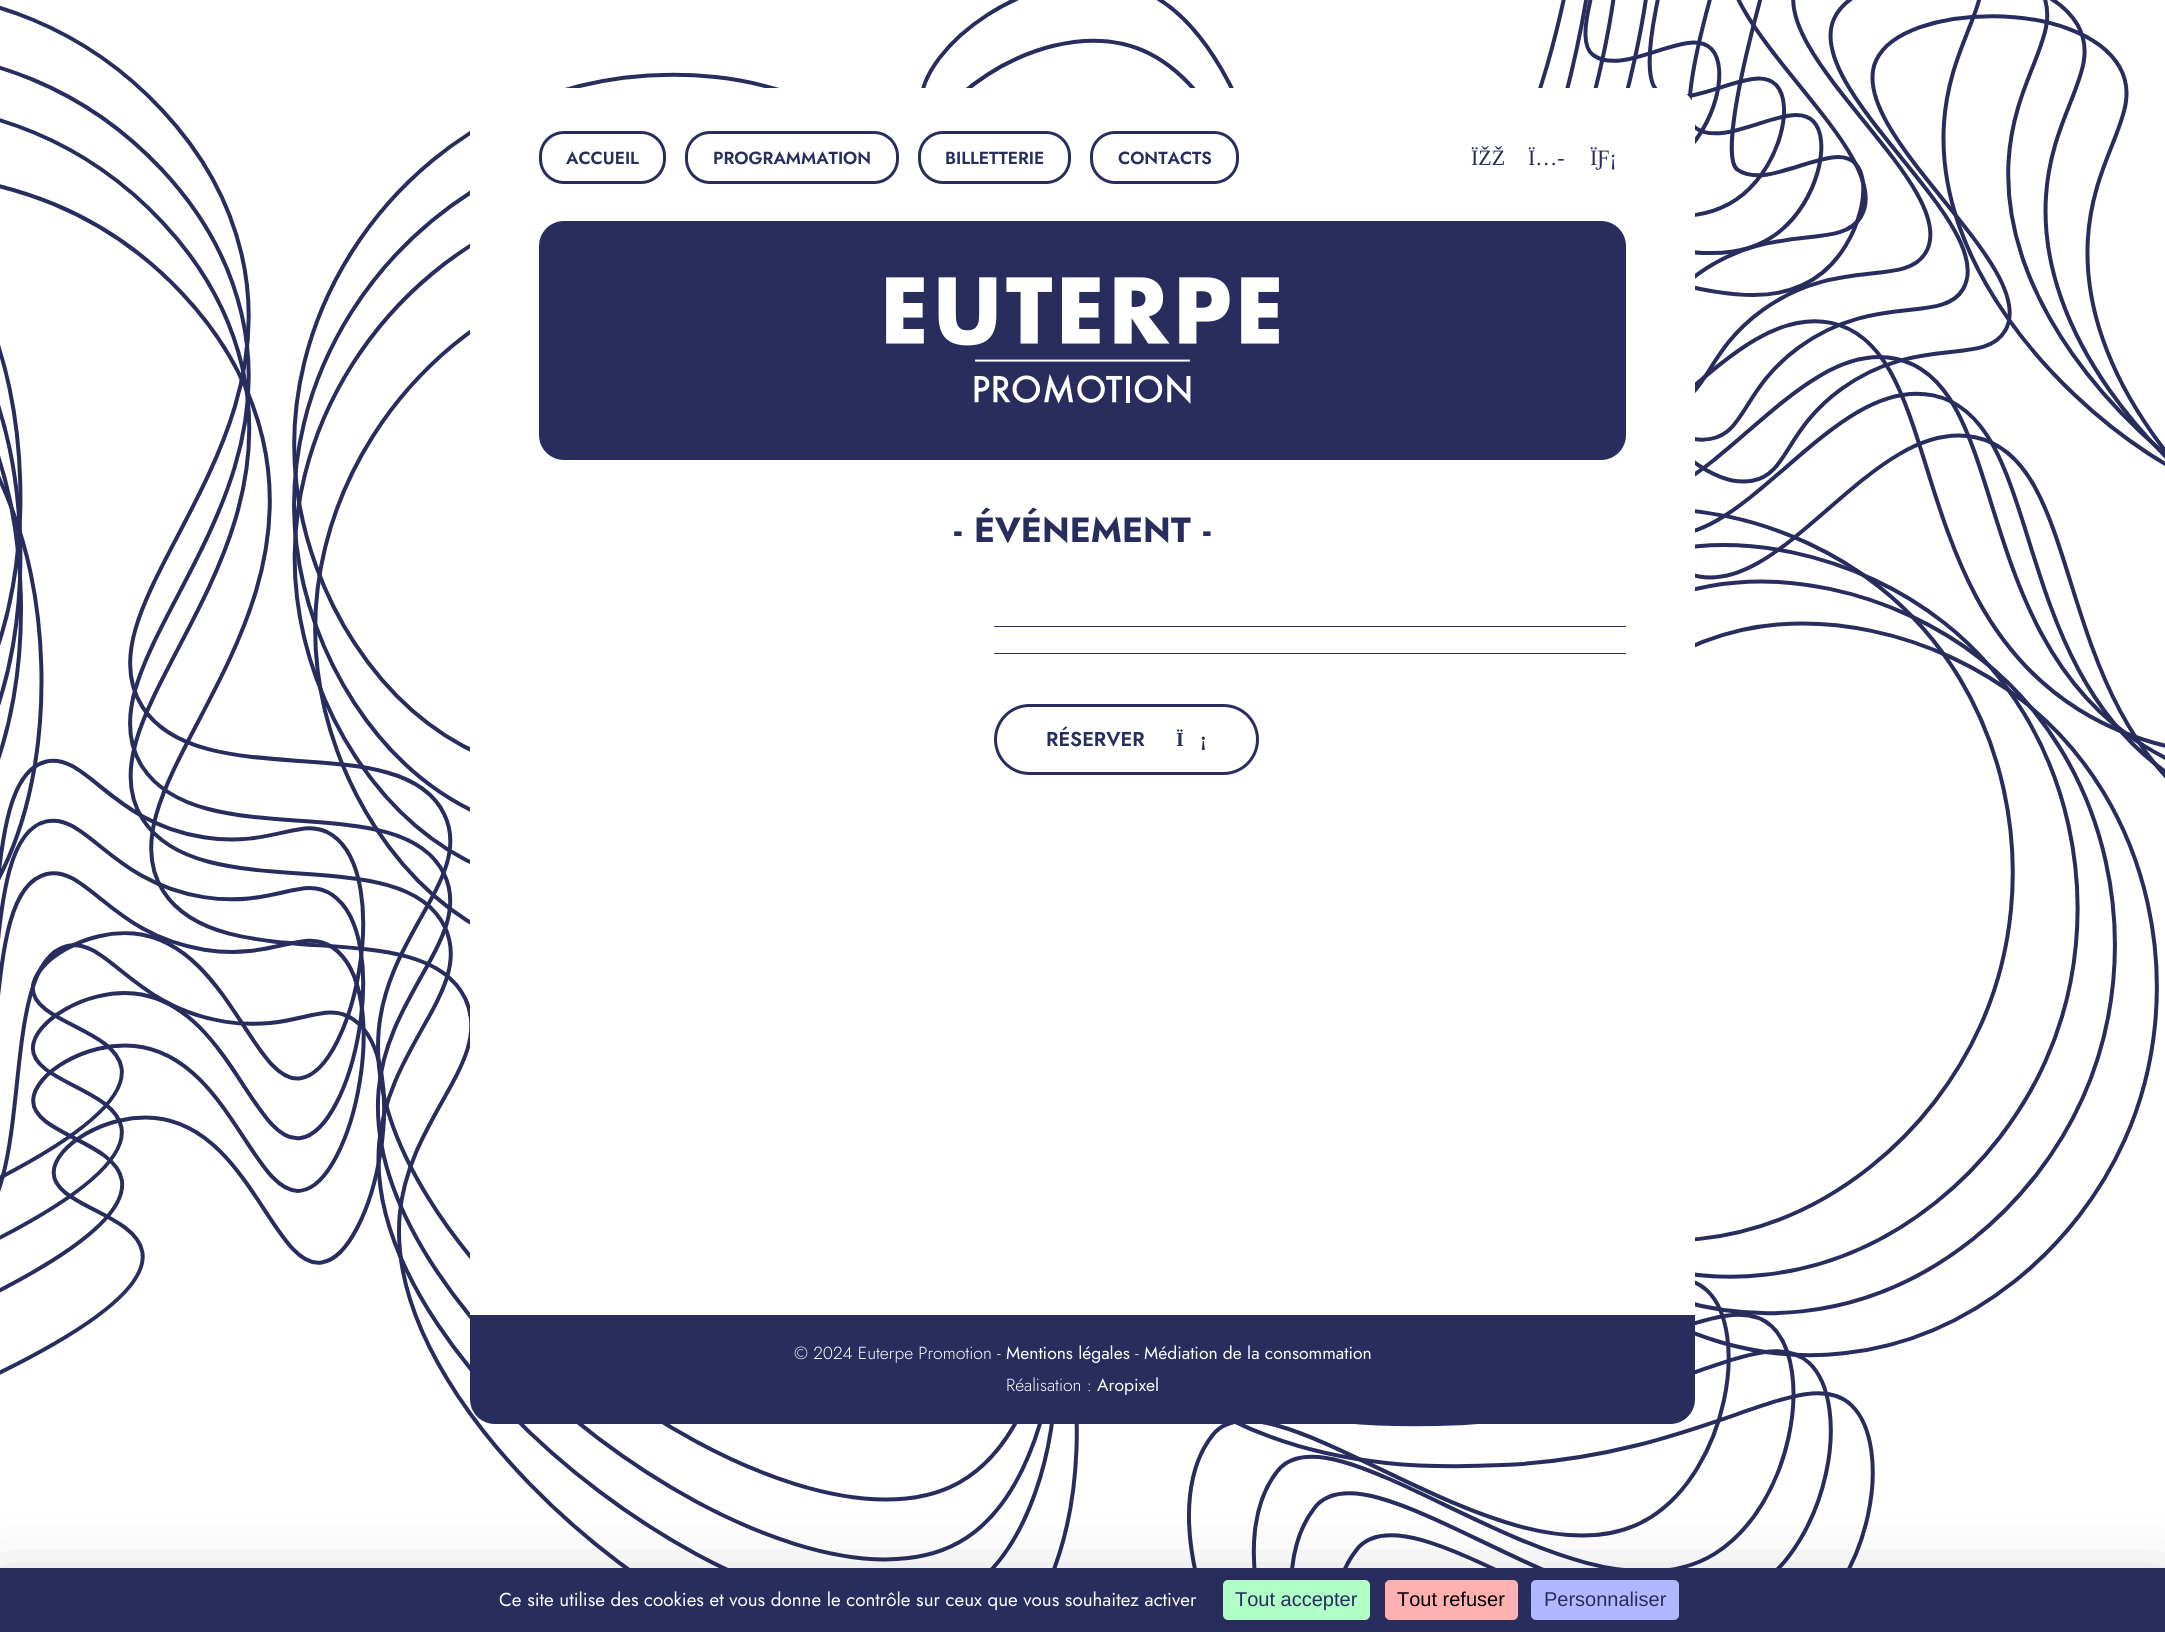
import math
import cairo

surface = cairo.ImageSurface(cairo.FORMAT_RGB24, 2165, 1632)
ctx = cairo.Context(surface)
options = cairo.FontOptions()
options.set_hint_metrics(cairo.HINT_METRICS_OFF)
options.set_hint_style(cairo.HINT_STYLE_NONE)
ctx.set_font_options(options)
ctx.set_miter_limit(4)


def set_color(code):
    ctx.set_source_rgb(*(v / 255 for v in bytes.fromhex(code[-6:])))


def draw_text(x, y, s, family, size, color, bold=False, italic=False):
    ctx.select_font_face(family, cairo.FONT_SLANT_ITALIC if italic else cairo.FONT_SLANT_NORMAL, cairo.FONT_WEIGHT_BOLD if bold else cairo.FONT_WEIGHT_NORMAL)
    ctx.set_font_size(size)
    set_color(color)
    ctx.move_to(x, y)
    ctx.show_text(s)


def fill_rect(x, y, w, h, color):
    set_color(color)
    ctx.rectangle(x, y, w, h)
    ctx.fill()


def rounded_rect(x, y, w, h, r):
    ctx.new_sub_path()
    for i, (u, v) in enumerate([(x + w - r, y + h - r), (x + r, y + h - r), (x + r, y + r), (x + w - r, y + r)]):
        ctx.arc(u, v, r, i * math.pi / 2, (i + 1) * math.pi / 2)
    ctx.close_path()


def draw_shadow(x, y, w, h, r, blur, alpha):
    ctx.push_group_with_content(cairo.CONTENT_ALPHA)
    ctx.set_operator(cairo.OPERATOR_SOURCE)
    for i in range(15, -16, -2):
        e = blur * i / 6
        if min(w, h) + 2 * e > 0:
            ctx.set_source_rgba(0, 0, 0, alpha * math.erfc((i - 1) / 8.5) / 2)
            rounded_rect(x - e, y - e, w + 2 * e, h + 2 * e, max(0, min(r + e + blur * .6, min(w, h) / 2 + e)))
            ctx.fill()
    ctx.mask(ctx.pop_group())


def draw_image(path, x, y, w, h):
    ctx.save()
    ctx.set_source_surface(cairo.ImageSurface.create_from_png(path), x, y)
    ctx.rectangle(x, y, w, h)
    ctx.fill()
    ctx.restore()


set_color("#ffffff")
ctx.paint()
draw_image("assets/img1.png", 0, 0, 2165, 1568)
set_color("#ffffff")
ctx.new_path()
ctx.move_to(495, 88)
ctx.line_to(1670, 88)
ctx.curve_to(1684, 88, 1695, 99, 1695, 113)
ctx.line_to(1695, 203)
ctx.line_to(470, 203)
ctx.line_to(470, 113)
ctx.curve_to(470, 99, 481, 88, 495, 88)
ctx.close_path()
ctx.fill()
rounded_rect(540.5, 132.5, 124, 50, 23.5)
set_color("#292d5e")
ctx.set_line_width(3)
ctx.stroke()
draw_text(566, 164, "ACCUEIL", "Jost SemiBold", 17.5, "#292d5e")
rounded_rect(686.5, 132.5, 211, 50, 23.5)
ctx.stroke()
draw_text(713, 164, "PROGRAMMATION", "Jost SemiBold", 17.5, "#292d5e")
rounded_rect(919.5, 132.5, 150, 50, 23.5)
ctx.stroke()
draw_text(945, 164, "BILLETTERIE", "Jost SemiBold", 17.5, "#292d5e")
rounded_rect(1091.5, 132.5, 146, 50, 23.5)
ctx.stroke()
draw_text(1118, 164, "CONTACTS", "Jost SemiBold", 17.5, "#292d5e")
draw_text(1471, 165, "ÏŽŽ", "Liberation Serif", 22, "#292d5e")
draw_text(1528, 165, "Ï…-", "Liberation Serif", 22, "#292d5e")
draw_text(1590, 165, "ÏƑ¡", "Liberation Serif", 22, "#292d5e")
fill_rect(470, 203, 1225, 1112, "#ffffff")
set_color("#292d5e")
rounded_rect(539, 221, 1087, 239, 25)
ctx.fill()
draw_image("assets/img2.png", 886, 277, 393, 127)
draw_text(954, 542, "-", "Jost", 35, "#292d5e", bold=True)
draw_text(974, 542, "ÉVÉNEMENT", "Jost", 35, "#292d5e", bold=True)
draw_text(1203, 542, "-", "Jost", 35, "#292d5e", bold=True)
fill_rect(994, 626, 632, 1, "#292d5e")
fill_rect(994, 653, 632, 1, "#292d5e")
rounded_rect(995.5, 705.5, 262, 68, 34)
ctx.stroke()
draw_text(1046, 746, "RÉSERVER", "Jost SemiBold", 20, "#292d5e")
draw_text(1176, 746, "Ï", "Liberation Serif", 20, "#292d5e", bold=True)
draw_text(1200, 746, "¡", "Liberation Serif", 20, "#292d5e", bold=True)
ctx.new_path()
ctx.move_to(470, 1315)
ctx.line_to(1695, 1315)
ctx.line_to(1695, 1399)
ctx.curve_to(1695, 1413, 1684, 1424, 1670, 1424)
ctx.line_to(495, 1424)
ctx.curve_to(481, 1424, 470, 1413, 470, 1399)
ctx.close_path()
ctx.fill()
draw_text(794, 1359, "© 2024 Euterpe Promotion -", "Jost Light", 17.5, "#ffffff")
draw_text(1006, 1359, "Mentions légales", "Jost", 17.5, "#ffffff")
draw_text(1135, 1359, "-", "Jost Light", 17.5, "#ffffff")
draw_text(1144, 1359, "Médiation de la consommation", "Jost", 17.5, "#ffffff")
draw_text(1006, 1391, "Réalisation :", "Jost Light", 17.5, "#ffffff")
draw_text(1097, 1391, "Aropixel", "Jost", 17.5, "#ffffff")
set_color("#000000")
draw_shadow(0, 1593, 2165, 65, 0, 37.5, 0.25)
fill_rect(0, 1568, 2165, 64, "#292d5e")
draw_text(499, 1606, "Ce site utilise des cookies et vous donne le contrôle sur ceux que vous souhaitez activer", "Jost", 18.75, "#ffffff")
set_color("#b0ffc6")
rounded_rect(1223, 1580, 147, 40, 5)
ctx.fill()
draw_text(1235, 1606, "Tout accepter", "Liberation Sans", 20, "#292d5e")
set_color("#ffb0b0")
rounded_rect(1385, 1580, 133, 40, 5)
ctx.fill()
draw_text(1397, 1606, "Tout refuser", "Liberation Sans", 20, "#000000")
set_color("#b1b8ff")
rounded_rect(1531, 1580, 148, 40, 5)
ctx.fill()
draw_text(1544, 1606, "Personnaliser", "Liberation Sans", 20, "#292d5e")
surface.write_to_png("output.png")
